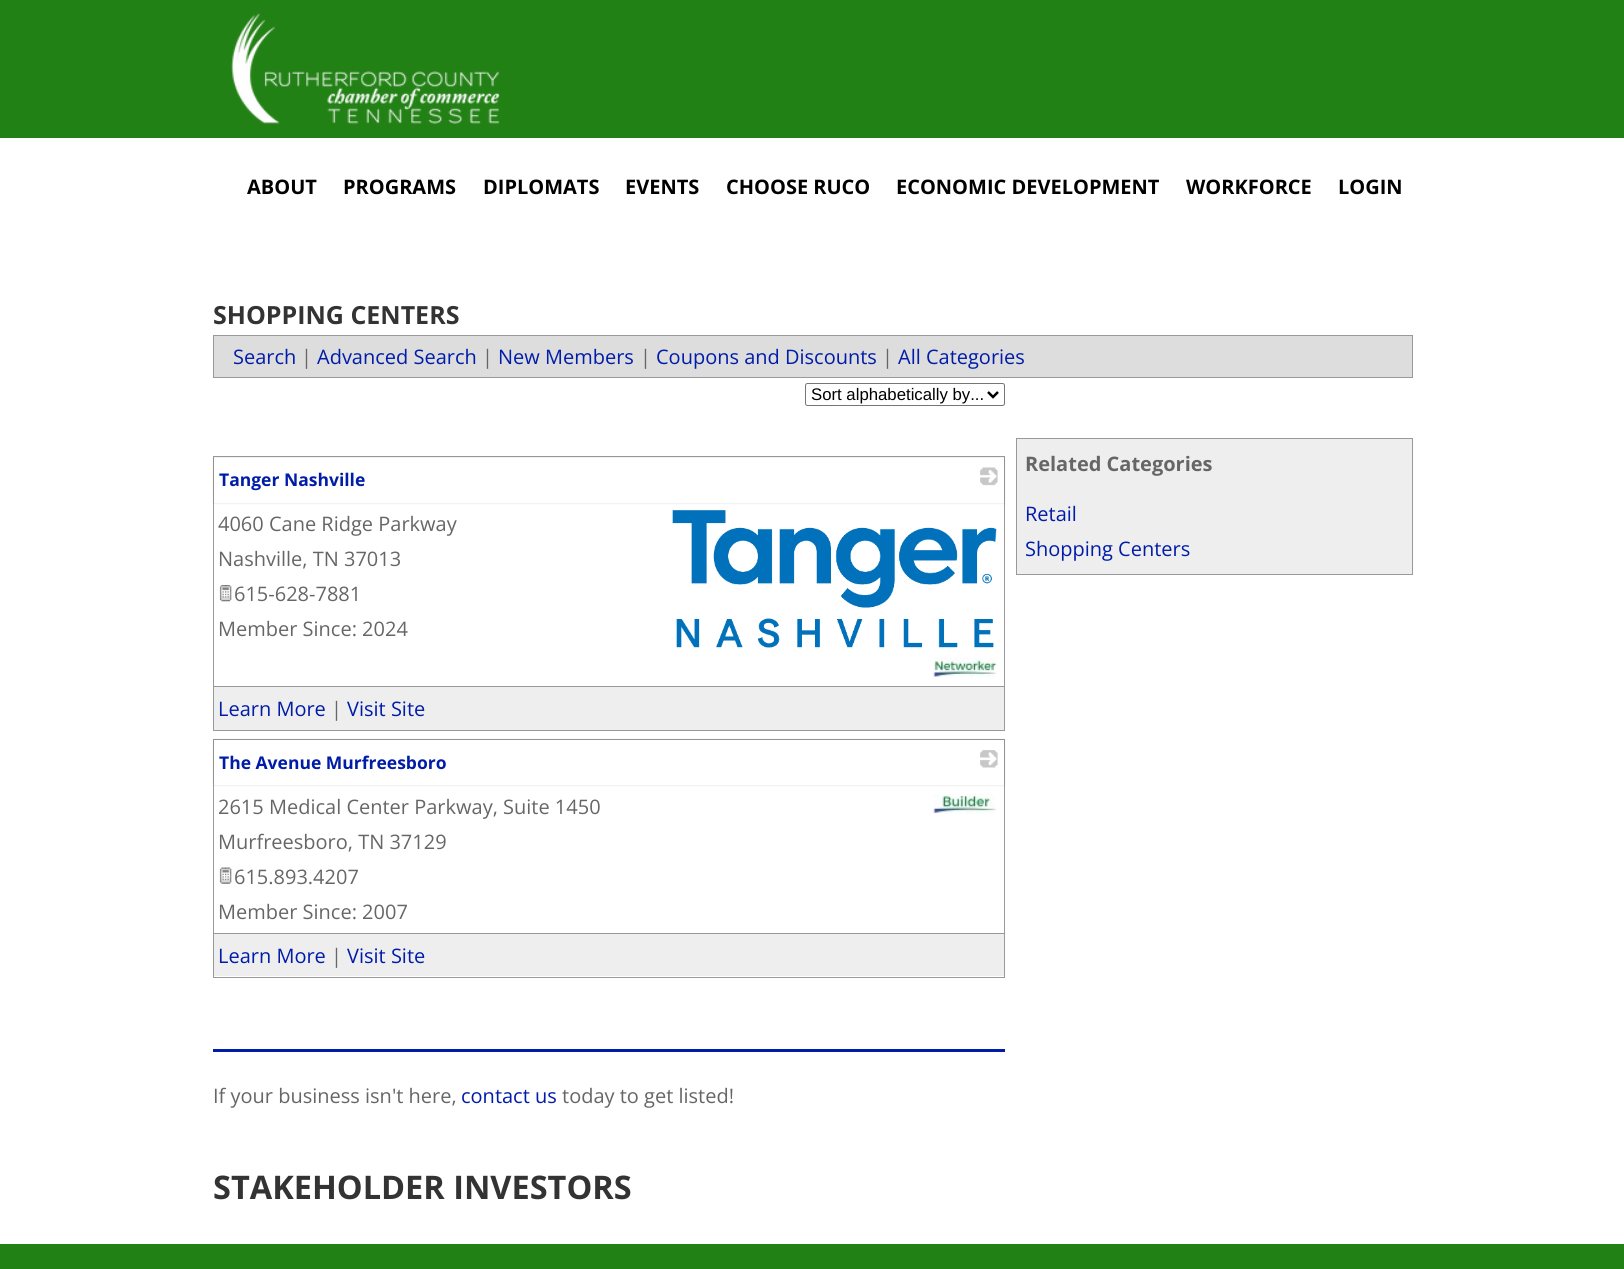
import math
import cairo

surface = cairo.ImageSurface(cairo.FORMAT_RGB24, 1624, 1269)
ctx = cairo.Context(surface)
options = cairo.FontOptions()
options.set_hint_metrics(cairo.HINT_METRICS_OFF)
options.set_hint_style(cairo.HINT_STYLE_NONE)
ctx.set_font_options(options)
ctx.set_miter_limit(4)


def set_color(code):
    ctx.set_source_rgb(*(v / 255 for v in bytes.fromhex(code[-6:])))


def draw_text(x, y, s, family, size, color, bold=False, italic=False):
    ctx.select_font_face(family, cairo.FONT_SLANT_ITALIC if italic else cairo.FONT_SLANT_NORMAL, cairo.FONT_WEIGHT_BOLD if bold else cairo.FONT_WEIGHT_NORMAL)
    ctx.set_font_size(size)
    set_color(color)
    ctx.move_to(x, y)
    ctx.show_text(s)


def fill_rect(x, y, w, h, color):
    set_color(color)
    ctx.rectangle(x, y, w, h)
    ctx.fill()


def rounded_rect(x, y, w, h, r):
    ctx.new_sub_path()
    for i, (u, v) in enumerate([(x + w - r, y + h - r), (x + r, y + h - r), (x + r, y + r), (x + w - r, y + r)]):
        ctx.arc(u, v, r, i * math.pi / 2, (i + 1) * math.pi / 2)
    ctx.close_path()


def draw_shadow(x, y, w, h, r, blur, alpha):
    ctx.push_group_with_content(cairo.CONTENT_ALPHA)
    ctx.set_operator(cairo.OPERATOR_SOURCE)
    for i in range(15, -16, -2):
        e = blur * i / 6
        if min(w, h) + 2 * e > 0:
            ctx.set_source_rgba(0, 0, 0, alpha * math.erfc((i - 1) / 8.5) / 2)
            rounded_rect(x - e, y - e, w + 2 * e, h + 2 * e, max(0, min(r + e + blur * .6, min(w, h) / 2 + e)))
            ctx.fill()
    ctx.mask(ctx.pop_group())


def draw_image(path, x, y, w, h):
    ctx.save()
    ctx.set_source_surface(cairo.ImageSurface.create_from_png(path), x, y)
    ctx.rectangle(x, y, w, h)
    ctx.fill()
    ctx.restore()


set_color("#228115")
ctx.paint()
draw_image("assets/img1.png", 231, 12, 269, 112)
fill_rect(0, 138, 1624, 1106, "#ffffff")
draw_text(247, 194, "ABOUT", "Open Sans", 20, "#000000", bold=True)
draw_text(343, 194, "PROGRAMS", "Open Sans", 20, "#000000", bold=True)
draw_text(483, 194, "DIPLOMATS", "Open Sans", 20, "#000000", bold=True)
draw_text(625, 194, "EVENTS", "Open Sans", 20, "#000000", bold=True)
draw_text(726, 194, "CHOOSE RUCO", "Open Sans", 20, "#000000", bold=True)
draw_text(896, 194, "ECONOMIC DEVELOPMENT", "Open Sans", 20, "#000000", bold=True)
draw_text(1186, 194, "WORKFORCE", "Open Sans", 20, "#000000", bold=True)
draw_text(1338, 194, "LOGIN", "Open Sans", 20, "#000000", bold=True)
draw_text(213, 324, "SHOPPING CENTERS", "Open Sans", 25, "#333333", bold=True)
set_color("#dddddd")
ctx.rectangle(213.5, 335.5, 1199, 42)
ctx.fill_preserve()
set_color("#999999")
ctx.set_line_width(1)
ctx.stroke()
draw_text(233, 364, "Search", "Open Sans", 20, "#001ca8")
draw_text(301, 364, "|", "Open Sans", 20, "#666666")
draw_text(317, 364, "Advanced Search", "Open Sans", 20, "#001ca8")
draw_text(482, 364, "|", "Open Sans", 20, "#666666")
draw_text(498, 364, "New Members", "Open Sans", 20, "#001ca8")
draw_text(640, 364, "|", "Open Sans", 20, "#666666")
draw_text(656, 364, "Coupons and Discounts", "Open Sans", 20, "#001ca8")
draw_text(882, 364, "|", "Open Sans", 20, "#666666")
draw_text(898, 364, "All Categories", "Open Sans", 20, "#001ca8")
rounded_rect(805.5, 383.5, 199, 22, 2)
set_color("#767676")
ctx.stroke()
ctx.new_path()
ctx.move_to(988, 392)
ctx.line_to(993, 397)
ctx.line_to(998, 392)
set_color("#000000")
ctx.set_line_width(2.5)
ctx.stroke()
draw_text(811, 400, "Sort alphabetically by...", "Liberation Sans", 16.75, "#000000")
ctx.rectangle(213.5, 456.5, 791, 274)
set_color("#999999")
ctx.set_line_width(1)
ctx.stroke()
set_color("#000000")
draw_shadow(214, 458, 790, 45, 0, 1, 0.15)
fill_rect(214, 458, 790, 45, "#ffffff")
draw_text(219, 486, "Tanger Nashville", "Open Sans", 17.5, "#001ca8", bold=True)
draw_image("assets/img2.png", 980, 467, 18, 19)
draw_text(218, 531, "4060 Cane Ridge Parkway", "Open Sans", 20, "#666666")
draw_text(218, 566, "Nashville, TN 37013", "Open Sans", 20, "#666666")
draw_image("assets/img3.png", 219, 585, 13, 17)
draw_text(234, 601, "615-628-7881", "Open Sans", 20, "#666666")
draw_text(218, 636, "Member Since: 2024", "Open Sans", 20, "#666666")
draw_image("assets/img4.png", 672, 510, 325, 138)
draw_image("assets/img5.png", 933, 657, 64, 21)
fill_rect(214, 687, 790, 43, "#eeeeee")
fill_rect(214, 686, 790, 1, "#999999")
draw_text(218, 716, "Learn More", "Open Sans", 20, "#001ca8")
draw_text(331, 716, "|", "Open Sans", 20, "#666666")
draw_text(347, 716, "Visit Site", "Open Sans", 20, "#001ca8")
ctx.rectangle(213.5, 739.5, 791, 238)
set_color("#999999")
ctx.stroke()
set_color("#000000")
draw_shadow(214, 740, 790, 45, 0, 1, 0.15)
fill_rect(214, 740, 790, 45, "#ffffff")
draw_text(219, 769, "The Avenue Murfreesboro", "Open Sans", 17.5, "#001ca8", bold=True)
draw_image("assets/img6.png", 980, 750, 18, 18)
draw_text(218, 814, "2615 Medical Center Parkway, Suite 1450", "Open Sans", 20, "#666666")
draw_text(218, 849, "Murfreesboro, TN 37129", "Open Sans", 20, "#666666")
draw_image("assets/img7.png", 219, 867, 13, 17)
draw_text(234, 884, "615.893.4207", "Open Sans", 20, "#666666")
draw_text(218, 919, "Member Since: 2007", "Open Sans", 20, "#666666")
draw_image("assets/img8.png", 933, 794, 64, 20)
fill_rect(214, 934, 790, 42, "#eeeeee")
fill_rect(214, 933, 790, 1, "#999999")
draw_text(218, 963, "Learn More", "Open Sans", 20, "#001ca8")
draw_text(331, 963, "|", "Open Sans", 20, "#666666")
draw_text(347, 963, "Visit Site", "Open Sans", 20, "#001ca8")
fill_rect(213, 1049, 792, 3, "#001ca8")
draw_text(213, 1103, "If your business isn't here,", "Open Sans", 20, "#666666")
draw_text(461, 1103, "contact us", "Open Sans", 20, "#001ca8")
draw_text(562, 1103, "today to get listed!", "Open Sans", 20, "#666666")
set_color("#eeeeee")
ctx.rectangle(1016.5, 438.5, 396, 136)
ctx.fill_preserve()
set_color("#999999")
ctx.stroke()
draw_text(1025, 471, "Related Categories", "Open Sans", 20, "#666666", bold=True)
draw_text(1025, 521, "Retail", "Open Sans", 20, "#001ca8")
draw_text(1025, 556, "Shopping Centers", "Open Sans", 20, "#001ca8")
draw_text(213, 1199, "STAKEHOLDER INVESTORS", "Open Sans", 32.5, "#333333", bold=True)
surface.write_to_png("output.png")
